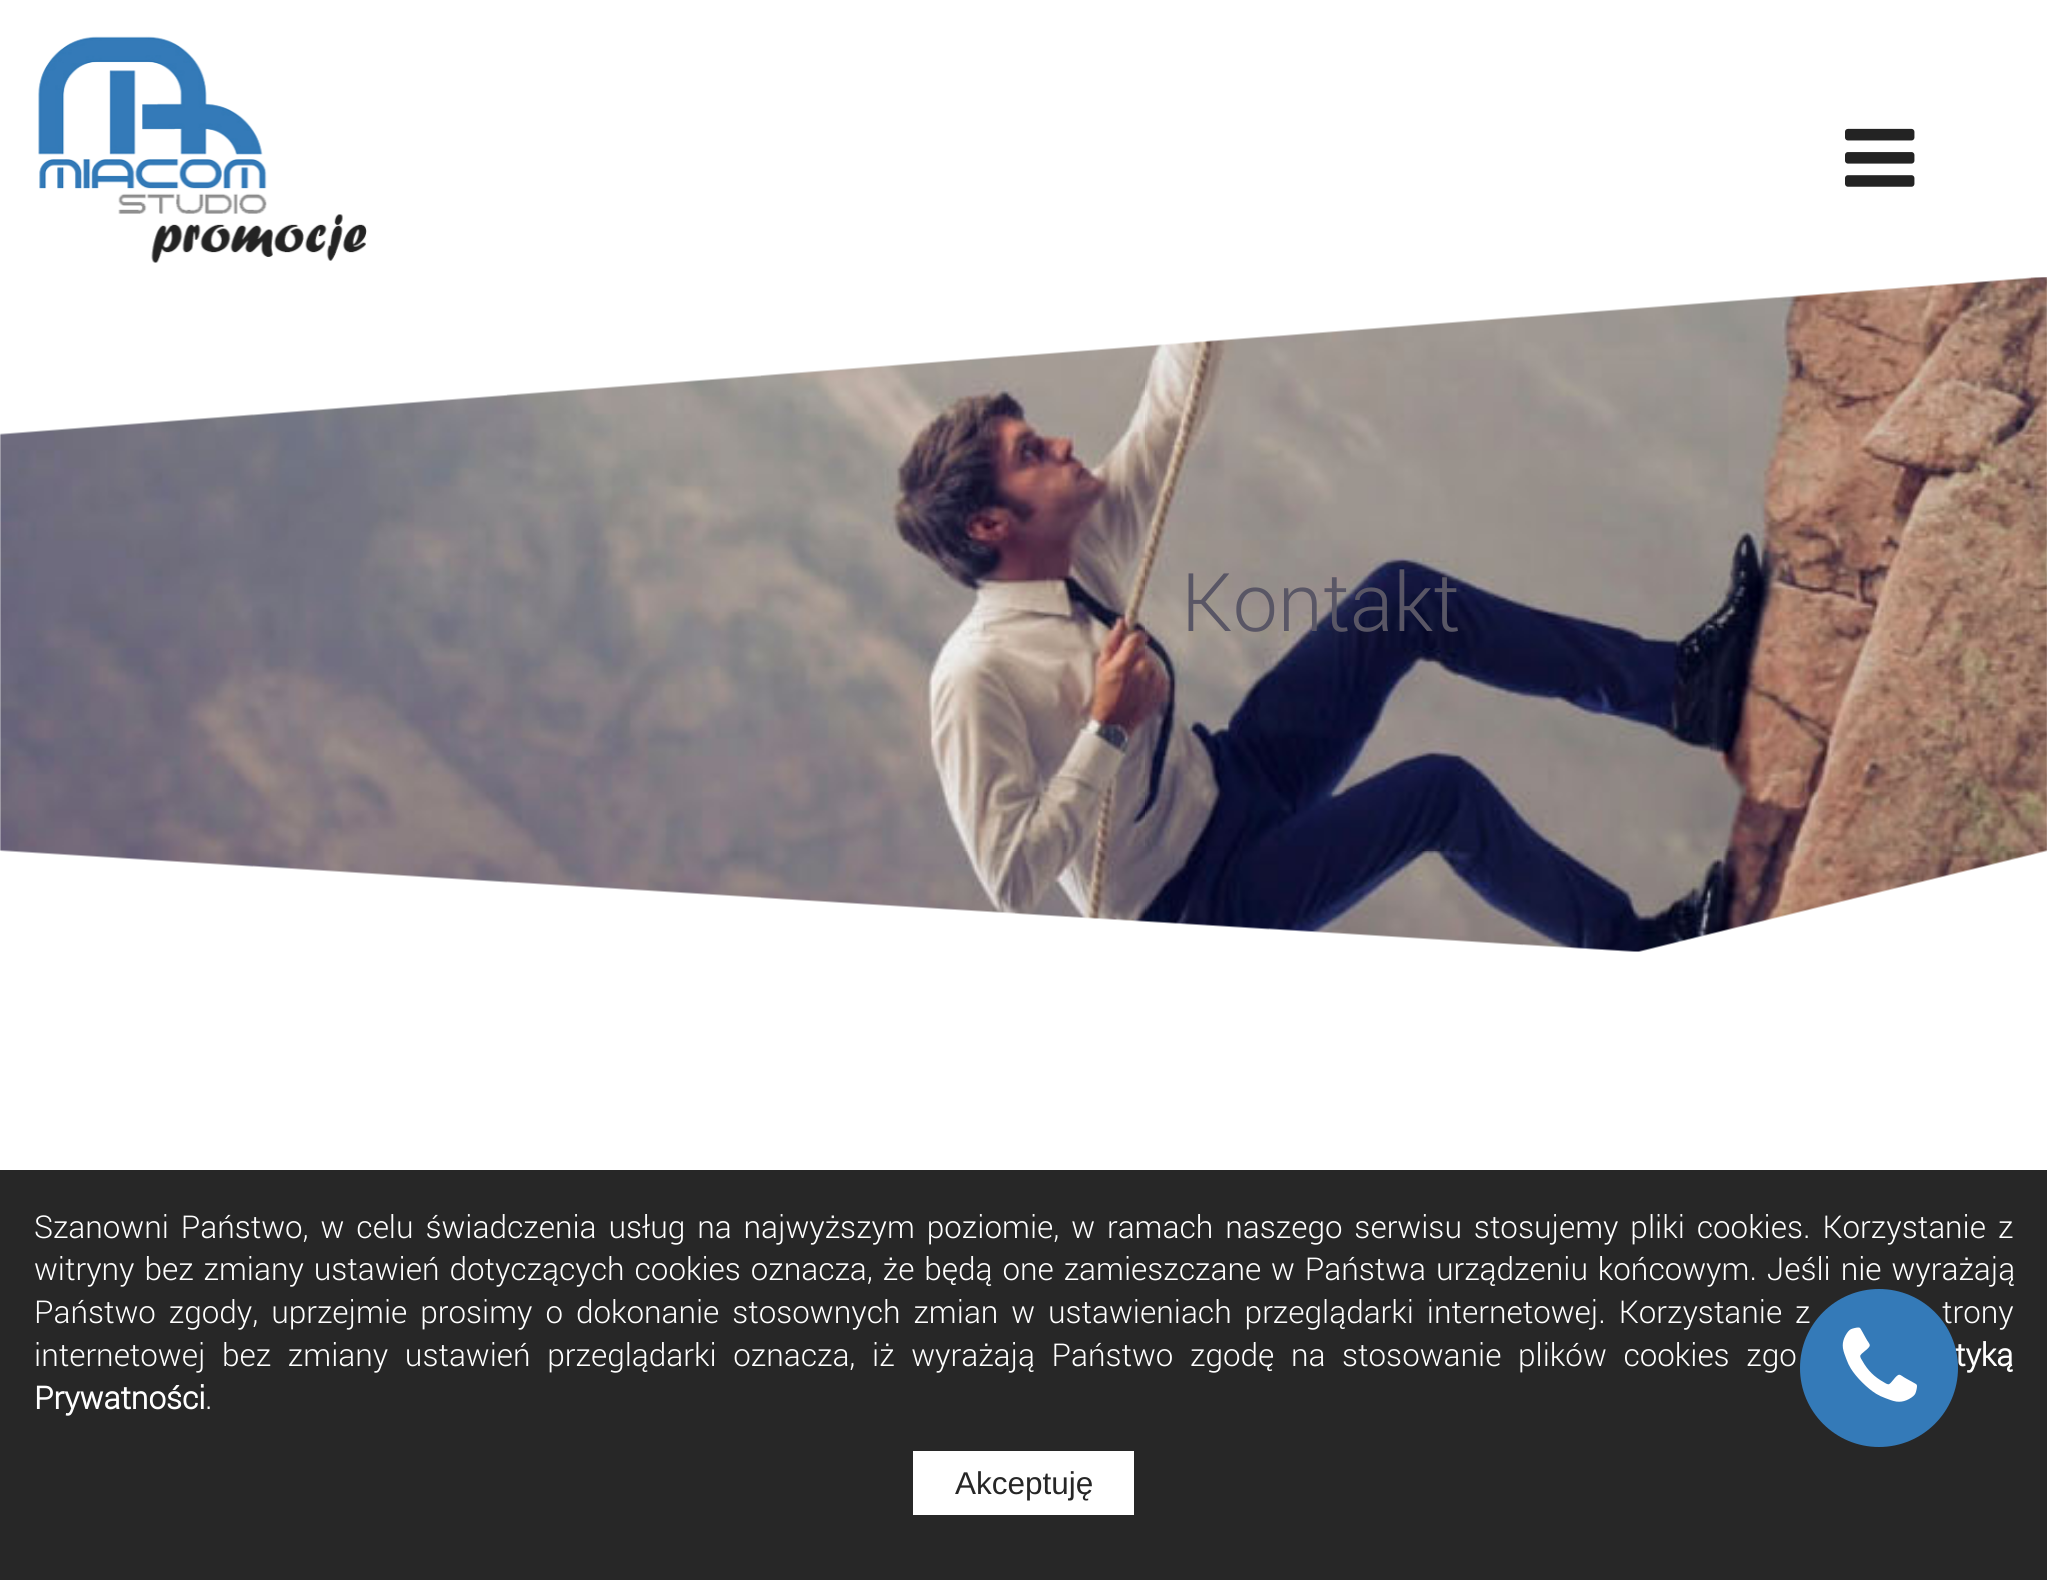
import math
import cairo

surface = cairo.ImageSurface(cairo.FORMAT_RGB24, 2047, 1580)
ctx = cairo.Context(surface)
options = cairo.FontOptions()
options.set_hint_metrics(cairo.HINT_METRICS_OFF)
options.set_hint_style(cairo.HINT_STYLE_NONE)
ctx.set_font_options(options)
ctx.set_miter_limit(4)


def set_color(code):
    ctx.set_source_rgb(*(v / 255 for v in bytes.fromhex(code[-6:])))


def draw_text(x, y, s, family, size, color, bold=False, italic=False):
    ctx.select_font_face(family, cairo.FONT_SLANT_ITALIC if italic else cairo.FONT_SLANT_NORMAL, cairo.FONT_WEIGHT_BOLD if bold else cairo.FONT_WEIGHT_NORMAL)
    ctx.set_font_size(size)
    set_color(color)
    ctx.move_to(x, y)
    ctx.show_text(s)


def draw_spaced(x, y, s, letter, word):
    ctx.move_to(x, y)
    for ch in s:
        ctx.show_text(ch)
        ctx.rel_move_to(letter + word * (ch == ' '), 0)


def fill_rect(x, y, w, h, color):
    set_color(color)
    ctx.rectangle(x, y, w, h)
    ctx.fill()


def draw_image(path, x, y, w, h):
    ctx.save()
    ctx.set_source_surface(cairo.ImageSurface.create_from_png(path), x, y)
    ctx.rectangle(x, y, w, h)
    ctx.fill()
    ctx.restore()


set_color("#ffffff")
ctx.paint()
draw_image("assets/img1.png", 38, 36, 329, 227)
draw_image("assets/img2.png", 1845, 128, 70, 59)
draw_image("assets/img3.png", 0, 277, 2047, 675)
draw_text(1181, 631, "Kontakt", "Roboto Light", 81, "#595665")
fill_rect(0, 1170, 2047, 410, "#272727")
ctx.set_font_size(31.5)
set_color("#ffffff")
draw_spaced(34, 1238, "Szanowni Państwo, w celu świadczenia usług na najwyższym poziomie, w ramach naszego serwisu stosujemy pliki cookies. Korzystanie z", 0, 4.25)
draw_spaced(34, 1280, "witryny bez zmiany ustawień dotyczących cookies oznacza, że będą one zamieszczane w Państwa urządzeniu końcowym. Jeśli nie wyrażają", 0, 2.25)
draw_spaced(34, 1323, "Państwo zgody, uprzejmie prosimy o dokonanie stosownych zmian w ustawieniach przeglądarki internetowej. Korzystanie z", 0, 5.25)
draw_spaced(1942, 1323, "trony", 0, 5.25)
draw_spaced(34, 1366, "internetowej bez zmiany ustawień przeglądarki oznacza, iż wyrażają Państwo zgodę na stosowanie plików cookies zgo", 0, 9)
draw_text(1955, 1366, "tyką", "Roboto", 31.5, "#ffffff", bold=True)
draw_text(34, 1409, "Prywatności", "Roboto", 31.5, "#ffffff", bold=True)
draw_text(205, 1409, ".", "Roboto Light", 31.5, "#ffffff")
fill_rect(913, 1451, 221, 64, "#ffffff")
draw_text(955, 1494, "Akceptuję", "Liberation Sans", 31.5, "#262626")
set_color("#347ab8")
ctx.new_path()
ctx.arc(1879, 1368, 79, 0, 2 * math.pi)
ctx.fill()
draw_image("assets/img4.png", 1842, 1327, 75, 75)
surface.write_to_png("output.png")
